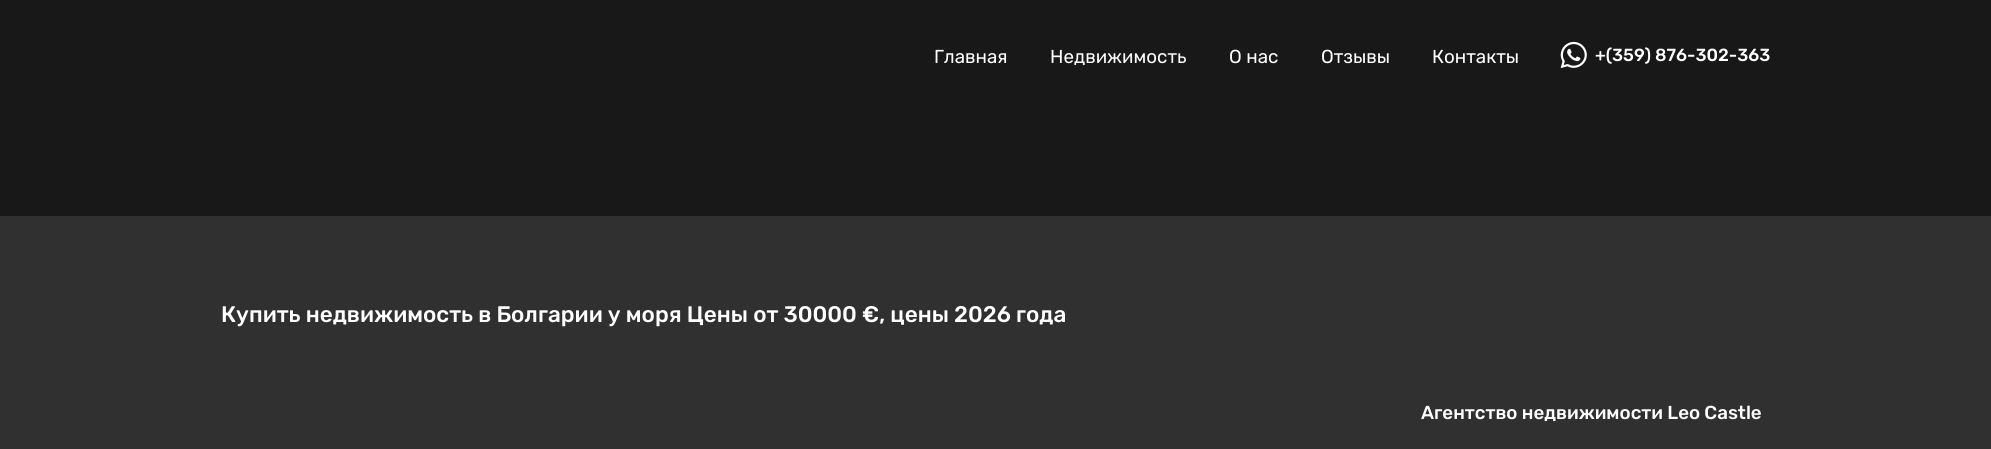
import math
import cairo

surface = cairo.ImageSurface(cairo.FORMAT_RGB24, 1991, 449)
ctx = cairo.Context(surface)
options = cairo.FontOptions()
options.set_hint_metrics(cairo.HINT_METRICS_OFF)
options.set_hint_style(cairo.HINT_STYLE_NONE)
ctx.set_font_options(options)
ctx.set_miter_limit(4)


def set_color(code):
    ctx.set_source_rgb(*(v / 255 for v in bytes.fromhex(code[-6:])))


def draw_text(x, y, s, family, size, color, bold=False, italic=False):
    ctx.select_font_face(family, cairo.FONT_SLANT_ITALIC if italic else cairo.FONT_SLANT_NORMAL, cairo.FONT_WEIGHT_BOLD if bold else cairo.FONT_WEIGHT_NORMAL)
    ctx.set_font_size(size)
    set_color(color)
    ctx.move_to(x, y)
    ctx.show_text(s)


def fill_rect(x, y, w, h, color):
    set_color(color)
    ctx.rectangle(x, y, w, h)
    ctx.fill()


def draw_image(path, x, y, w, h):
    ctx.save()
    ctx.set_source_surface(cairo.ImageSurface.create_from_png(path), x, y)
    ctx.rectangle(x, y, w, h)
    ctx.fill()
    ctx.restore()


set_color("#181818")
ctx.paint()
draw_text(934, 63, "Главная", "Rubik", 18.75, "#ffffff")
draw_text(1050, 63, "Недвижимость", "Rubik", 18.75, "#ffffff")
draw_text(1229, 63, "О нас", "Rubik", 18.75, "#ffffff")
draw_text(1321, 63, "Отзывы", "Rubik", 18.75, "#ffffff")
draw_text(1432, 63, "Контакты", "Rubik", 18.75, "#ffffff")
draw_image("assets/img1.png", 1560, 41, 27, 28)
draw_text(1595, 61, "+(359) 876-302-363", "Rubik Medium", 17.5, "#ffffff")
fill_rect(0, 216, 1991, 233, "#303030")
draw_text(221, 322, "Купить недвижимость в Болгарии у моря Цены от 30000 €, цены 2026 года", "Rubik Medium", 22.5, "#ffffff")
draw_text(1421, 419, "Агентство недвижимости Leo Castle", "Rubik Medium", 18.75, "#ffffff")
surface.write_to_png("output.png")
